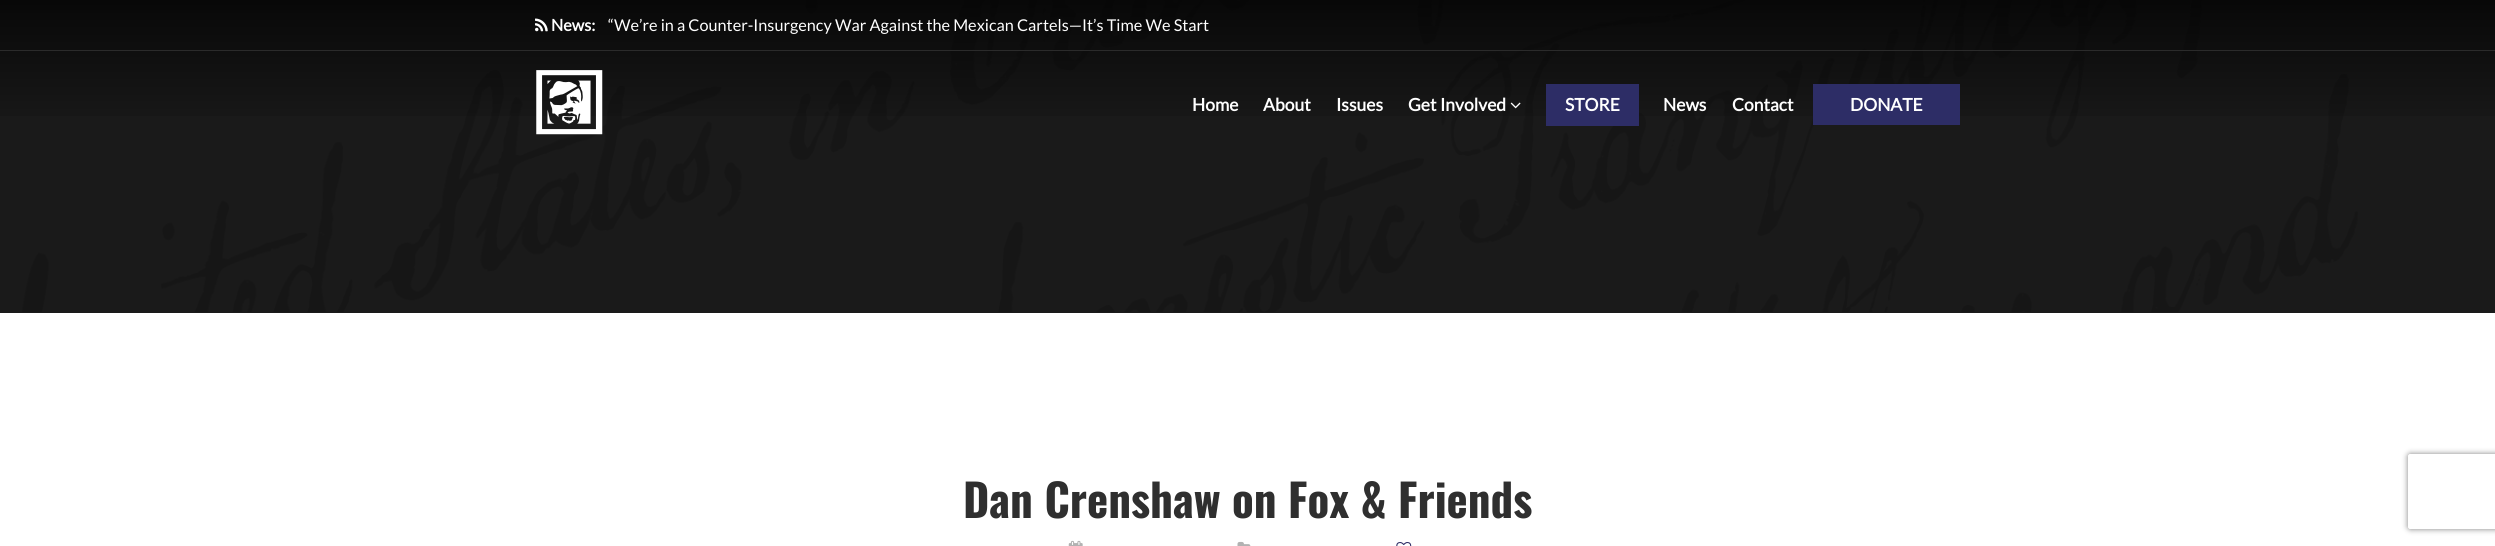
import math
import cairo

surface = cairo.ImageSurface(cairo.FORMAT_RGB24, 2495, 546)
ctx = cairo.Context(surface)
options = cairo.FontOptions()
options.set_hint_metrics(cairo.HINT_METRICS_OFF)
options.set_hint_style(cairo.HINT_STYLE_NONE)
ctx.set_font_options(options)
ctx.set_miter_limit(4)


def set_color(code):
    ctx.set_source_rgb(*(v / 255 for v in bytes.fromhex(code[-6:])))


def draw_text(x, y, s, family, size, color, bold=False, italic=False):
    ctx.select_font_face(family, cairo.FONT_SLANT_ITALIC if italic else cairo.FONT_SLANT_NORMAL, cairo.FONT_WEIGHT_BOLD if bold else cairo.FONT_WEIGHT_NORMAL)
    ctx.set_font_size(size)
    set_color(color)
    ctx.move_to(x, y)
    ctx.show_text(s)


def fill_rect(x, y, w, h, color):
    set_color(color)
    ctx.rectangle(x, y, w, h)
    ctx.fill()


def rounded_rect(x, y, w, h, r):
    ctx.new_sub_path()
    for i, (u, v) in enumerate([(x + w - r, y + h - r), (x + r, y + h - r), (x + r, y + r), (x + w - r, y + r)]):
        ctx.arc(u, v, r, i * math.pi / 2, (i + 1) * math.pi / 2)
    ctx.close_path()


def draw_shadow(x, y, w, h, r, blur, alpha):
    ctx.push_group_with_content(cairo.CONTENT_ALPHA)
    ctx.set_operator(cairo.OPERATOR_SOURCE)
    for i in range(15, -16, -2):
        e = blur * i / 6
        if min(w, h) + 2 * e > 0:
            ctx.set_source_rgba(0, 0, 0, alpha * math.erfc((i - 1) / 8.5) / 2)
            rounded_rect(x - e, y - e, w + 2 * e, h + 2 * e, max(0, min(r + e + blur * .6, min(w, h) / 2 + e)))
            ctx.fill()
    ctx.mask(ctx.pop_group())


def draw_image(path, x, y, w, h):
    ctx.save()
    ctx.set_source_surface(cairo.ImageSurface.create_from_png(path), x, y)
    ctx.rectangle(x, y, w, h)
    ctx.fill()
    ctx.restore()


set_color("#ffffff")
ctx.paint()
fill_rect(0, 0, 2495, 313, "#1a1a1a")
draw_image("assets/img1.png", 22, 0, 2336, 312)
gradient = cairo.LinearGradient(1248, 0, 1248, 150)
gradient.add_color_stop_rgba(0, 0, 0, 0, 0.7)
gradient.add_color_stop_rgba(0.9, 0, 0, 0, 0)
ctx.set_source(gradient)
ctx.rectangle(0, 0, 2495, 116)
ctx.fill()
fill_rect(0, 50, 2495, 1, "#2b2b2b")
draw_image("assets/img2.png", 535, 18, 13, 14)
draw_text(551, 31, "News:", "Lato", 16.25, "#ffffff", bold=True)
draw_text(608, 31, "“We’re in a Counter-Insurgency War Against the Mexican Cartels—It’s Time We Start", "Lato", 16.25, "#ffffff")
draw_image("assets/img3.png", 536, 70, 67, 65)
draw_text(1192, 111, "Home", "Lato", 17.5, "#ffffff", bold=True)
draw_text(1263, 111, "About", "Lato", 17.5, "#ffffff", bold=True)
draw_text(1336, 111, "Issues", "Lato", 17.5, "#ffffff", bold=True)
draw_text(1408, 111, "Get Involved", "Lato", 17.5, "#ffffff", bold=True)
draw_image("assets/img4.png", 1510, 102, 11, 7)
fill_rect(1546, 84, 93, 42, "#2d2d66")
draw_text(1565, 111, "STORE", "Lato", 17.5, "#ffffff", bold=True)
draw_text(1663, 111, "News", "Lato", 17.5, "#ffffff", bold=True)
draw_text(1732, 111, "Contact", "Lato", 17.5, "#ffffff", bold=True)
fill_rect(1813, 84, 147, 41, "#2d2d66")
draw_text(1850, 111, "DONATE", "Lato", 17.5, "#ffffff", bold=True)
draw_text(963, 518, "Dan Crenshaw on Fox & Friends", "Oswald", 45, "#2f2f2f", bold=True)
draw_image("assets/img5.png", 1068, 540, 15, 6)
draw_image("assets/img6.png", 1237, 541, 14, 5)
draw_image("assets/img7.png", 1396, 542, 16, 4)
ctx.save()
ctx.set_fill_rule(cairo.FILL_RULE_EVEN_ODD)
ctx.new_path()
ctx.move_to(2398, 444)
ctx.line_to(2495, 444)
ctx.line_to(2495, 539)
ctx.line_to(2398, 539)
ctx.close_path()
ctx.move_to(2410.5, 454)
ctx.line_to(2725.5, 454)
ctx.curve_to(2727, 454, 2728, 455, 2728, 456.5)
ctx.line_to(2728, 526.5)
ctx.curve_to(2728, 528, 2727, 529, 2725.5, 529)
ctx.line_to(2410.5, 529)
ctx.curve_to(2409, 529, 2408, 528, 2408, 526.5)
ctx.line_to(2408, 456.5)
ctx.curve_to(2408, 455, 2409, 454, 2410.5, 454)
ctx.close_path()
ctx.clip()
set_color("#808080")
draw_shadow(2408, 454, 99, 75, 2.5, 3, 1)
ctx.restore()
surface.write_to_png("output.png")
